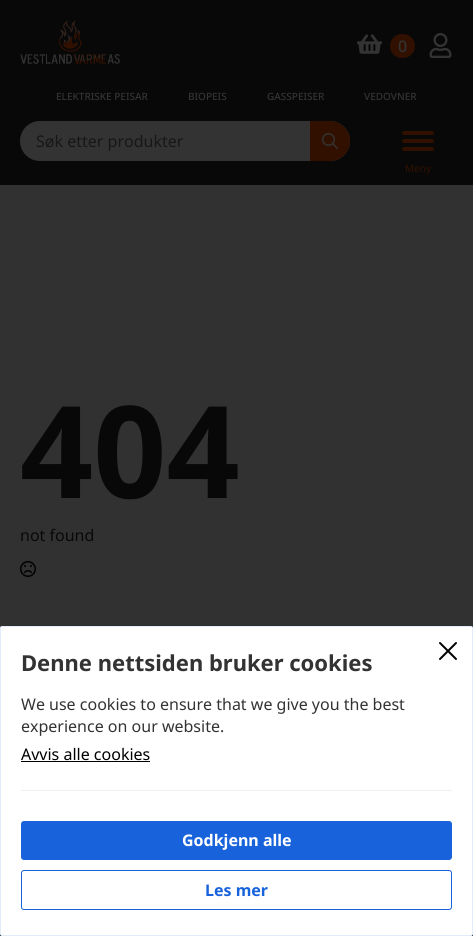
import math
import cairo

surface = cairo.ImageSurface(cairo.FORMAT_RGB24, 473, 936)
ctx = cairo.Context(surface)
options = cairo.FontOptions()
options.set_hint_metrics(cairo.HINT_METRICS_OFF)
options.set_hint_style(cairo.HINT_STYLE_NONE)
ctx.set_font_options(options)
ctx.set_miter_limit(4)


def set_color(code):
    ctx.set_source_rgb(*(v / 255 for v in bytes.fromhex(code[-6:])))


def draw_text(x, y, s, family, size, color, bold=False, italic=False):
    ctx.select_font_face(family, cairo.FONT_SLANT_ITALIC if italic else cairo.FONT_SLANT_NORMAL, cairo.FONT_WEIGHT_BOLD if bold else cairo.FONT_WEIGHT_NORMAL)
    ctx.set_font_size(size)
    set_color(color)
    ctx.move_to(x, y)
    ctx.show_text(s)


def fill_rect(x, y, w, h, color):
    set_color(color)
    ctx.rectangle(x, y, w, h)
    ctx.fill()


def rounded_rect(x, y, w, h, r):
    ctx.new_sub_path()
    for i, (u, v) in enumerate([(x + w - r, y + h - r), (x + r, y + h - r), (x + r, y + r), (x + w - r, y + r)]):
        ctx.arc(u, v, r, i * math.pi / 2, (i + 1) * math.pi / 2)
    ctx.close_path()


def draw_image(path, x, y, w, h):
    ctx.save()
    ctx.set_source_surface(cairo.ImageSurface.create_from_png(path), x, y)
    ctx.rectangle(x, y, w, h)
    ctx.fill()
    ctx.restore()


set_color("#313131")
ctx.paint()
fill_rect(0, 0, 473, 185, "#080808")
draw_image("assets/img1.png", 20, 20, 100, 44)
draw_image("assets/img2.png", 357, 34, 25, 20)
set_color("#321000")
rounded_rect(390, 34, 25, 24, 12)
ctx.fill()
draw_text(398, 52, "0", "Noto Sans Medium", 16, "#333333")
draw_image("assets/img3.png", 429, 33, 23, 25)
draw_text(56, 100, "ELEKTRISKE PEISAR", "Noto Sans Medium", 10, "#333333")
draw_text(188, 100, "BIOPEIS", "Noto Sans Medium", 10, "#333333")
draw_text(267, 100, "GASSPEISER", "Noto Sans Medium", 10, "#333333")
draw_text(364, 100, "VEDOVNER", "Noto Sans Medium", 10, "#333333")
rounded_rect(20, 121, 330, 40, 20)
ctx.fill()
draw_text(36, 147, "Søk etter produkter", "Noto Sans", 16, "#171717")
set_color("#321000")
ctx.new_path()
ctx.move_to(310, 121)
ctx.line_to(330, 121)
ctx.curve_to(341, 121, 350, 130, 350, 141)
ctx.curve_to(350, 152, 341, 161, 330, 161)
ctx.line_to(310, 161)
ctx.close_path()
ctx.fill()
draw_image("assets/img4.png", 322, 133, 16, 16)
rounded_rect(402, 131, 32, 4, 2)
ctx.fill()
rounded_rect(402, 139, 32, 4, 2)
ctx.fill()
rounded_rect(402, 147, 32, 4, 2)
ctx.fill()
draw_text(405, 172, "Meny", "Noto Sans", 10, "#321000")
draw_text(20, 498, "404", "Noto Sans", 128, "#080808", bold=True)
draw_text(20, 541, "not found", "Noto Sans", 16, "#080808")
draw_image("assets/img5.png", 20, 561, 16, 16)
fill_rect(0, 934, 473, 2, "#080808")
set_color("#ffffff")
rounded_rect(0, 626, 473, 310, 2)
ctx.fill()
rounded_rect(0.5, 626.5, 472, 309, 1.5)
ctx.set_source_rgba(0.094, 0.388, 0.863, 0.12)
ctx.set_line_width(1)
ctx.stroke()
ctx.new_path()
ctx.move_to(440, 643)
ctx.line_to(456, 659)
ctx.move_to(456, 643)
ctx.line_to(440, 659)
set_color("#000000")
ctx.set_line_width(2)
ctx.set_line_cap(cairo.LINE_CAP_ROUND)
ctx.stroke()
draw_text(21, 671, "Denne nettsiden bruker cookies", "Noto Sans", 22, "#333333", bold=True)
draw_text(21, 710, "We use cookies to ensure that we give you the best", "Noto Sans", 16, "#333333")
draw_text(21, 732, "experience on our website.", "Noto Sans", 16, "#333333")
draw_text(21, 760, "Avvis alle cookies", "Noto Sans", 16, "#000000")
fill_rect(21, 761, 129, 1, "#000000")
fill_rect(21, 790, 431, 1, "#f0f0f0")
set_color("#1863dc")
rounded_rect(21, 821, 431, 39, 3)
ctx.fill()
draw_text(182, 846, "Godkjenn alle", "Noto Sans", 16, "#ffffff", bold=True)
rounded_rect(21.5, 870.5, 430, 39, 2.5)
set_color("#1863dc")
ctx.set_line_width(1)
ctx.set_line_cap(cairo.LINE_CAP_BUTT)
ctx.stroke()
draw_text(205, 896, "Les mer", "Noto Sans", 16, "#1863dc", bold=True)
surface.write_to_png("output.png")
